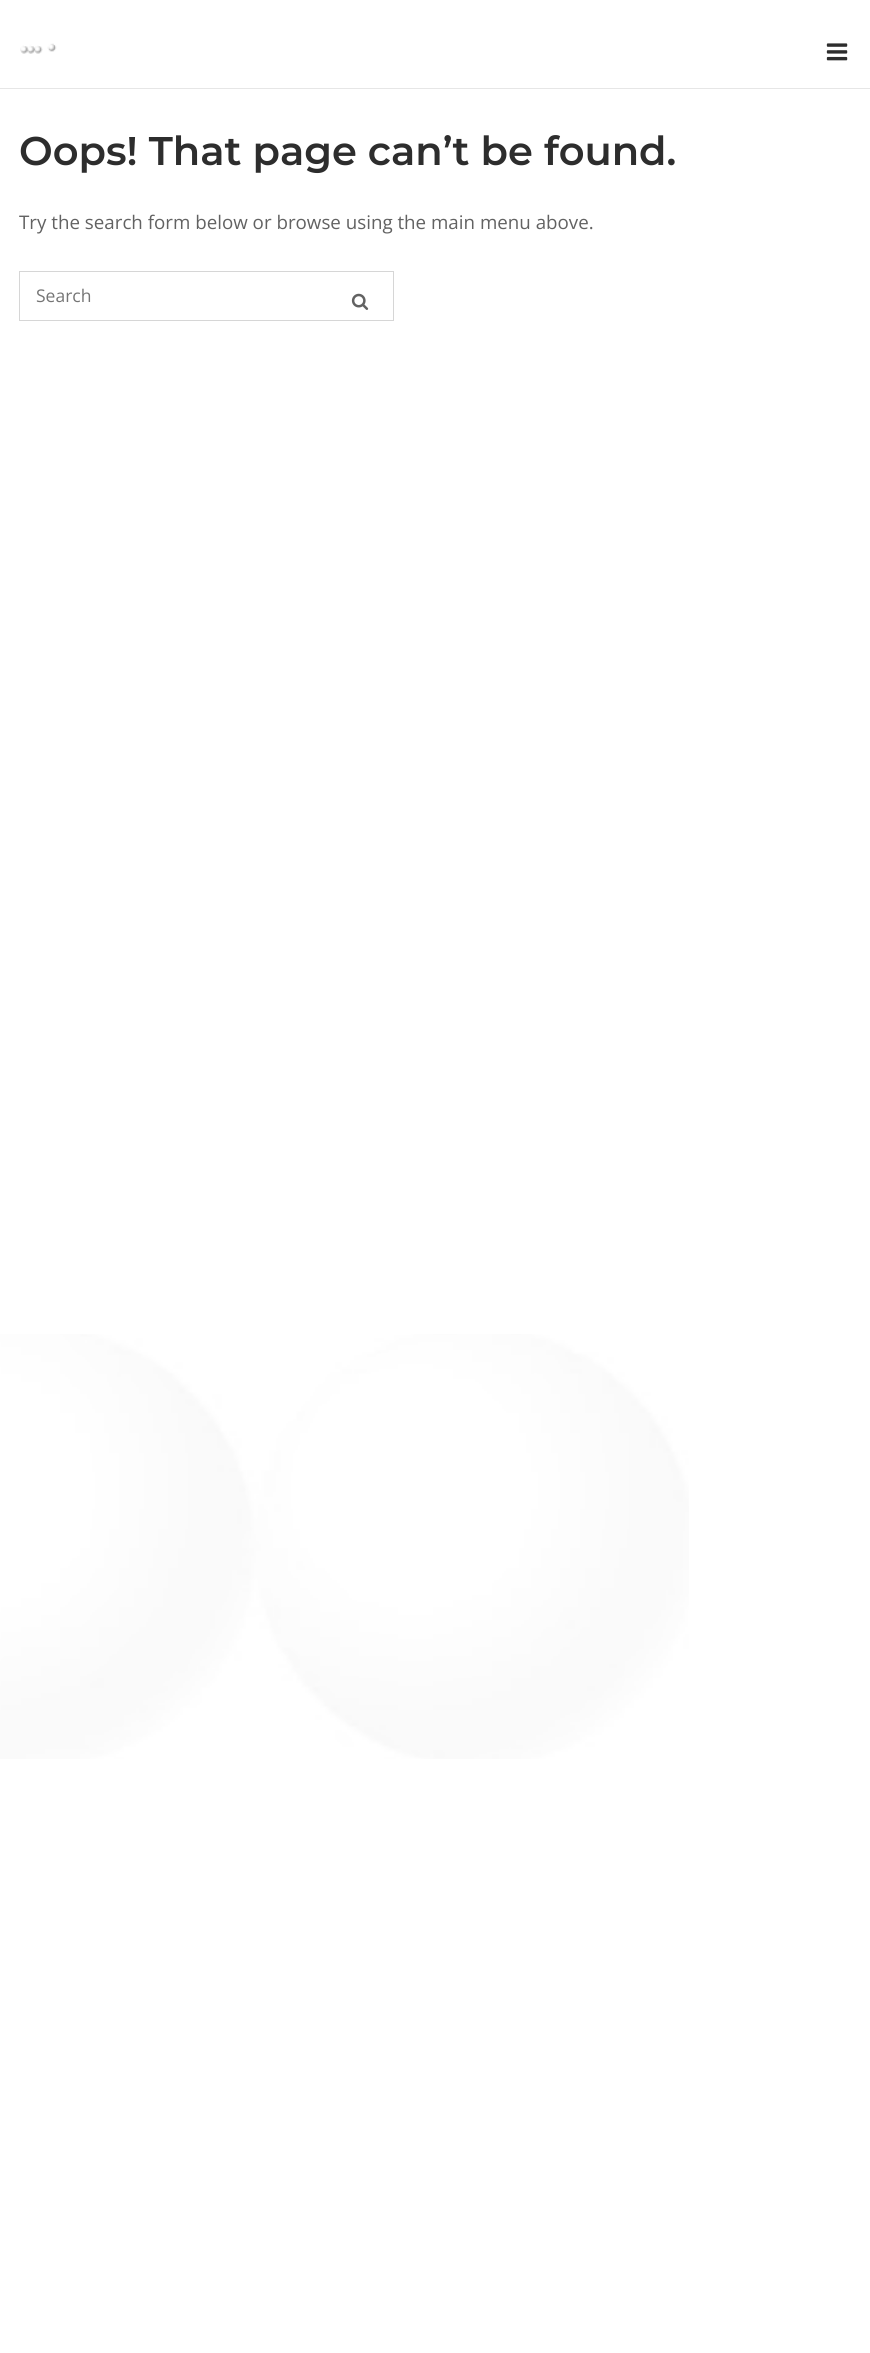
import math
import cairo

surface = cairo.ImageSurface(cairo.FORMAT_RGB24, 870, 2353)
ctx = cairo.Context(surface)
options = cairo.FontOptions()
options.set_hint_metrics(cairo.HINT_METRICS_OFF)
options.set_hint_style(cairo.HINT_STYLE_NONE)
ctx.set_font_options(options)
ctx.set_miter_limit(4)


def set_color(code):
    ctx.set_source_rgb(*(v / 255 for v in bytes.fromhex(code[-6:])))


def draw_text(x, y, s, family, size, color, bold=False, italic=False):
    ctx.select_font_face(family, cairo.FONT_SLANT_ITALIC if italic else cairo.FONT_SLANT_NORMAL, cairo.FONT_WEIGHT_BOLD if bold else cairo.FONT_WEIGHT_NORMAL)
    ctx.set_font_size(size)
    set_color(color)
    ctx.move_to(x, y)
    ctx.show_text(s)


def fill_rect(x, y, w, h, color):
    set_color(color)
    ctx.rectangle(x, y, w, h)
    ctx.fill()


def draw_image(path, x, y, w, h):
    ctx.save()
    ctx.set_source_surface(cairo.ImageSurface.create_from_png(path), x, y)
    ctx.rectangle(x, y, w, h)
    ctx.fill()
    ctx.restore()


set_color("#ffffff")
ctx.paint()
draw_image("assets/img1.png", 0, 1334, 689, 425)
fill_rect(0, 88, 870, 1, "#e6e6e6")
draw_image("assets/img2.png", 20, 43, 37, 11)
draw_image("assets/img3.png", 826, 43, 22, 18)
draw_text(19, 165, "Oops! That page can’t be found.", "Montserrat SemiBold", 40, "#2d2d2d")
draw_text(19, 229, "Try the search form below or browse using the main menu above.", "Open Sans", 18.75, "#626262")
ctx.rectangle(19.5, 271.5, 374, 49)
set_color("#d6d6d6")
ctx.set_line_width(1)
ctx.stroke()
draw_text(36, 302, "Search", "Open Sans", 17.5, "#757575")
draw_image("assets/img4.png", 351, 293, 18, 17)
surface.write_to_png("output.png")
